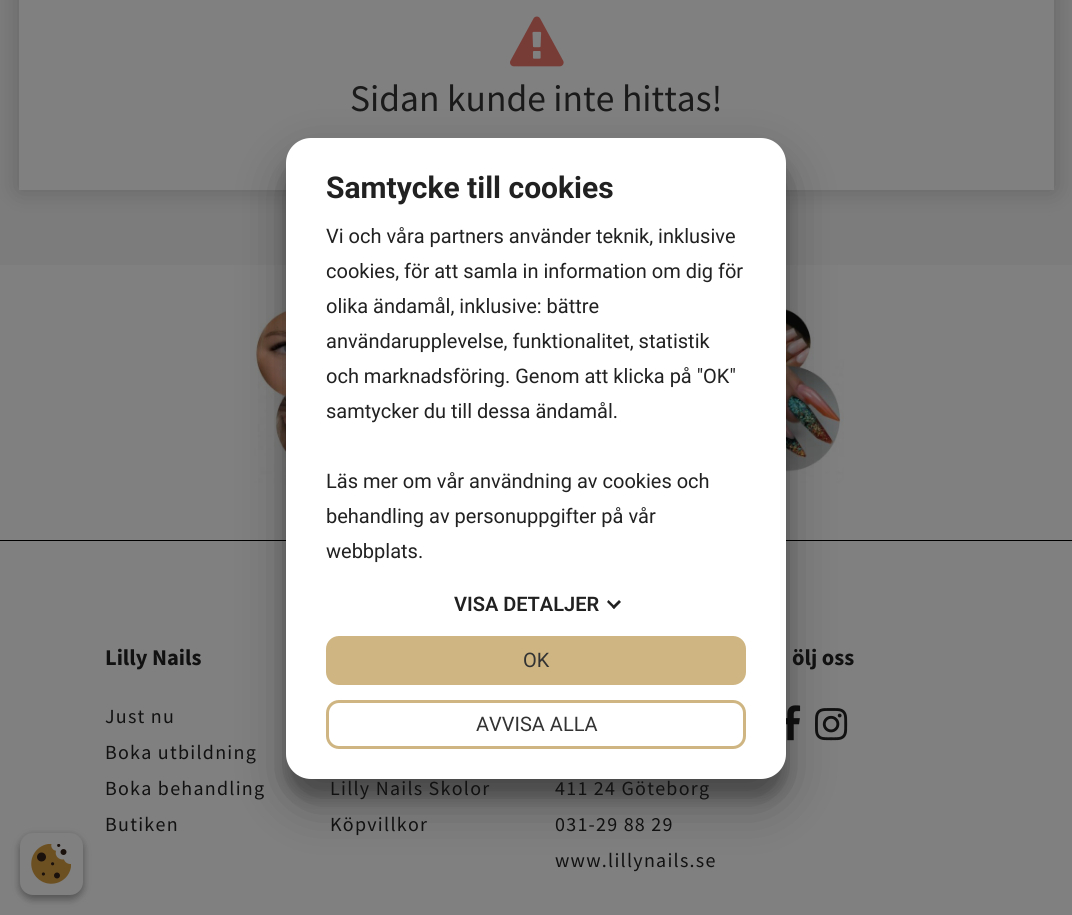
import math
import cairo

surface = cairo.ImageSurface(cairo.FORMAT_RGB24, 1072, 915)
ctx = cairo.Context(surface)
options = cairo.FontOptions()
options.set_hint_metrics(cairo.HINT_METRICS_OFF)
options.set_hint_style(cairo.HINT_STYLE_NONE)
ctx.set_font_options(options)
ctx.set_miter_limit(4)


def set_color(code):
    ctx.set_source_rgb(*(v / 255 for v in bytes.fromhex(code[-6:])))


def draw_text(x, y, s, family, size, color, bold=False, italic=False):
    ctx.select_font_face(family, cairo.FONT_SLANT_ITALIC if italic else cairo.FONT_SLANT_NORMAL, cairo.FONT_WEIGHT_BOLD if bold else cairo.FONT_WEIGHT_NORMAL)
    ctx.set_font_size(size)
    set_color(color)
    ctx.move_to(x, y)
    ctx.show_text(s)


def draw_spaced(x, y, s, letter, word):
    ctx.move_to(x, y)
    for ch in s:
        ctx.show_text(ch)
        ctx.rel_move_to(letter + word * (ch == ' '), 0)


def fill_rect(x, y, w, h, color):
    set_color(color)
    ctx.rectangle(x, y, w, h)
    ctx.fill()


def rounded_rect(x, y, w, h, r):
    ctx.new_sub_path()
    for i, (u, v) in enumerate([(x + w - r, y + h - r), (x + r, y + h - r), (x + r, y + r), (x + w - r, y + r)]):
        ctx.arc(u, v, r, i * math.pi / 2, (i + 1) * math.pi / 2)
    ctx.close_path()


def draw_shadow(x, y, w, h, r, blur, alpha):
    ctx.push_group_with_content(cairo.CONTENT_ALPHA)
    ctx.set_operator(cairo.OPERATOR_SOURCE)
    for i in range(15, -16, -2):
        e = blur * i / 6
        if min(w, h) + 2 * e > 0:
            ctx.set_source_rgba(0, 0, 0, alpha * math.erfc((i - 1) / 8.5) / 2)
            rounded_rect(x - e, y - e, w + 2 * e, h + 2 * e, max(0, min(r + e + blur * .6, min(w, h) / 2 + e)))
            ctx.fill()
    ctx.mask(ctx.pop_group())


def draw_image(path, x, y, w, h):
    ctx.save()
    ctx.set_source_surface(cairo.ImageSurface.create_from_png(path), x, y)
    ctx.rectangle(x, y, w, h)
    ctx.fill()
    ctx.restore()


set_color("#808080")
ctx.paint()
fill_rect(0, 0, 1072, 265, "#7c7c7c")
set_color("#000000")
draw_shadow(19, -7, 1035, 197, 0, 12.5, 0.2)
fill_rect(19, 0, 1035, 190, "#808080")
draw_image("assets/img1.png", 510, 16, 54, 51)
draw_text(350, 111, "Sidan kunde inte hittas!", "Source Sans Pro", 37.5, "#1a1a1a")
draw_image("assets/img2.png", 254, 306, 590, 180)
fill_rect(0, 540, 1072, 1, "#000000")
draw_image("assets/img4.png", 786, 705, 15, 36)
set_color("#000000")
draw_shadow(286, 156, 500, 642, 25, 7.5, 0.22)
draw_image("assets/img5.png", 815, 708, 33, 33)
draw_shadow(286, 161, 500, 642, 25, 24, 0.3)
set_color("#ffffff")
rounded_rect(286, 138, 500, 641, 25)
ctx.fill()
draw_text(326, 198, "Samtycke till cookies", "Roboto", 30, "#212121", bold=True)
draw_text(326, 243, "Vi och våra partners använder teknik, inklusive", "Roboto", 20, "#212121")
draw_text(326, 278, "cookies, för att samla in information om dig för", "Roboto", 20, "#212121")
draw_text(326, 313, "olika ändamål, inklusive: bättre", "Roboto", 20, "#212121")
draw_text(326, 348, "användarupplevelse, funktionalitet, statistik", "Roboto", 20, "#212121")
draw_text(326, 383, "och marknadsföring. Genom att klicka på \"OK\"", "Roboto", 20, "#212121")
draw_text(326, 418, "samtycker du till dessa ändamål.", "Roboto", 20, "#212121")
draw_text(326, 488, "Läs mer om vår användning av cookies och", "Roboto", 20, "#212121")
draw_text(326, 523, "behandling av personuppgifter på vår", "Roboto", 20, "#212121")
draw_text(326, 558, "webbplats.", "Roboto", 20, "#212121")
draw_text(454, 611, "VISA DETALJER", "Roboto SemiBold", 20, "#212121")
ctx.new_path()
ctx.move_to(619, 600)
ctx.line_to(621, 602)
ctx.line_to(614, 609)
ctx.line_to(612, 607)
ctx.close_path()
ctx.fill()
ctx.new_path()
ctx.move_to(608.5, 600)
ctx.line_to(615.5, 607)
ctx.line_to(614, 609)
ctx.line_to(607, 602)
ctx.close_path()
ctx.fill()
set_color("#ceb582")
rounded_rect(327.5, 637.5, 417, 46, 11.5)
ctx.fill_preserve()
ctx.set_line_width(3)
ctx.stroke()
draw_text(523, 667, "OK", "Roboto", 20, "#333333")
rounded_rect(327.5, 701.5, 417, 46, 11.5)
set_color("#ceb582")
ctx.stroke()
draw_text(476, 731, "AVVISA ALLA", "Roboto", 20, "#333333")
set_color("#000000")
draw_shadow(20, 836, 63, 63, 13, 4, 0.23)
draw_shadow(20, 836, 63, 63, 13, 4, 0.16)
set_color("#808080")
rounded_rect(20, 833, 63, 62, 13)
ctx.fill()
draw_image("assets/img3.png", 31, 844, 40, 40)
draw_text(105, 665, "Lilly Nails", "Source Sans Pro", 22.5, "#111111", bold=True)
ctx.select_font_face("Source Sans Pro")
ctx.set_font_size(20)
draw_spaced(105, 723, "Just nu", 1.25, 0)
draw_spaced(105, 759, "Boka utbildning", 1.25, 0)
draw_spaced(105, 795, "Boka behandling", 1.25, 0)
draw_spaced(105, 831, "Butiken", 1.25, 0)
draw_text(792, 665, "ölj oss", "Source Sans Pro", 22.5, "#111111", bold=True)
ctx.select_font_face("Source Sans Pro")
ctx.set_font_size(20)
draw_spaced(330, 795, "Lilly Nails Skolor", 1.25, 0)
draw_spaced(330, 831, "Köpvillkor", 1.25, 0)
draw_spaced(555, 795, "411 24 Göteborg", 1.25, 0)
draw_spaced(555, 831, "031-29 88 29", 1.25, 0)
draw_spaced(555, 867, "www.lillynails.se", 1.25, 0)
surface.write_to_png("output.png")
